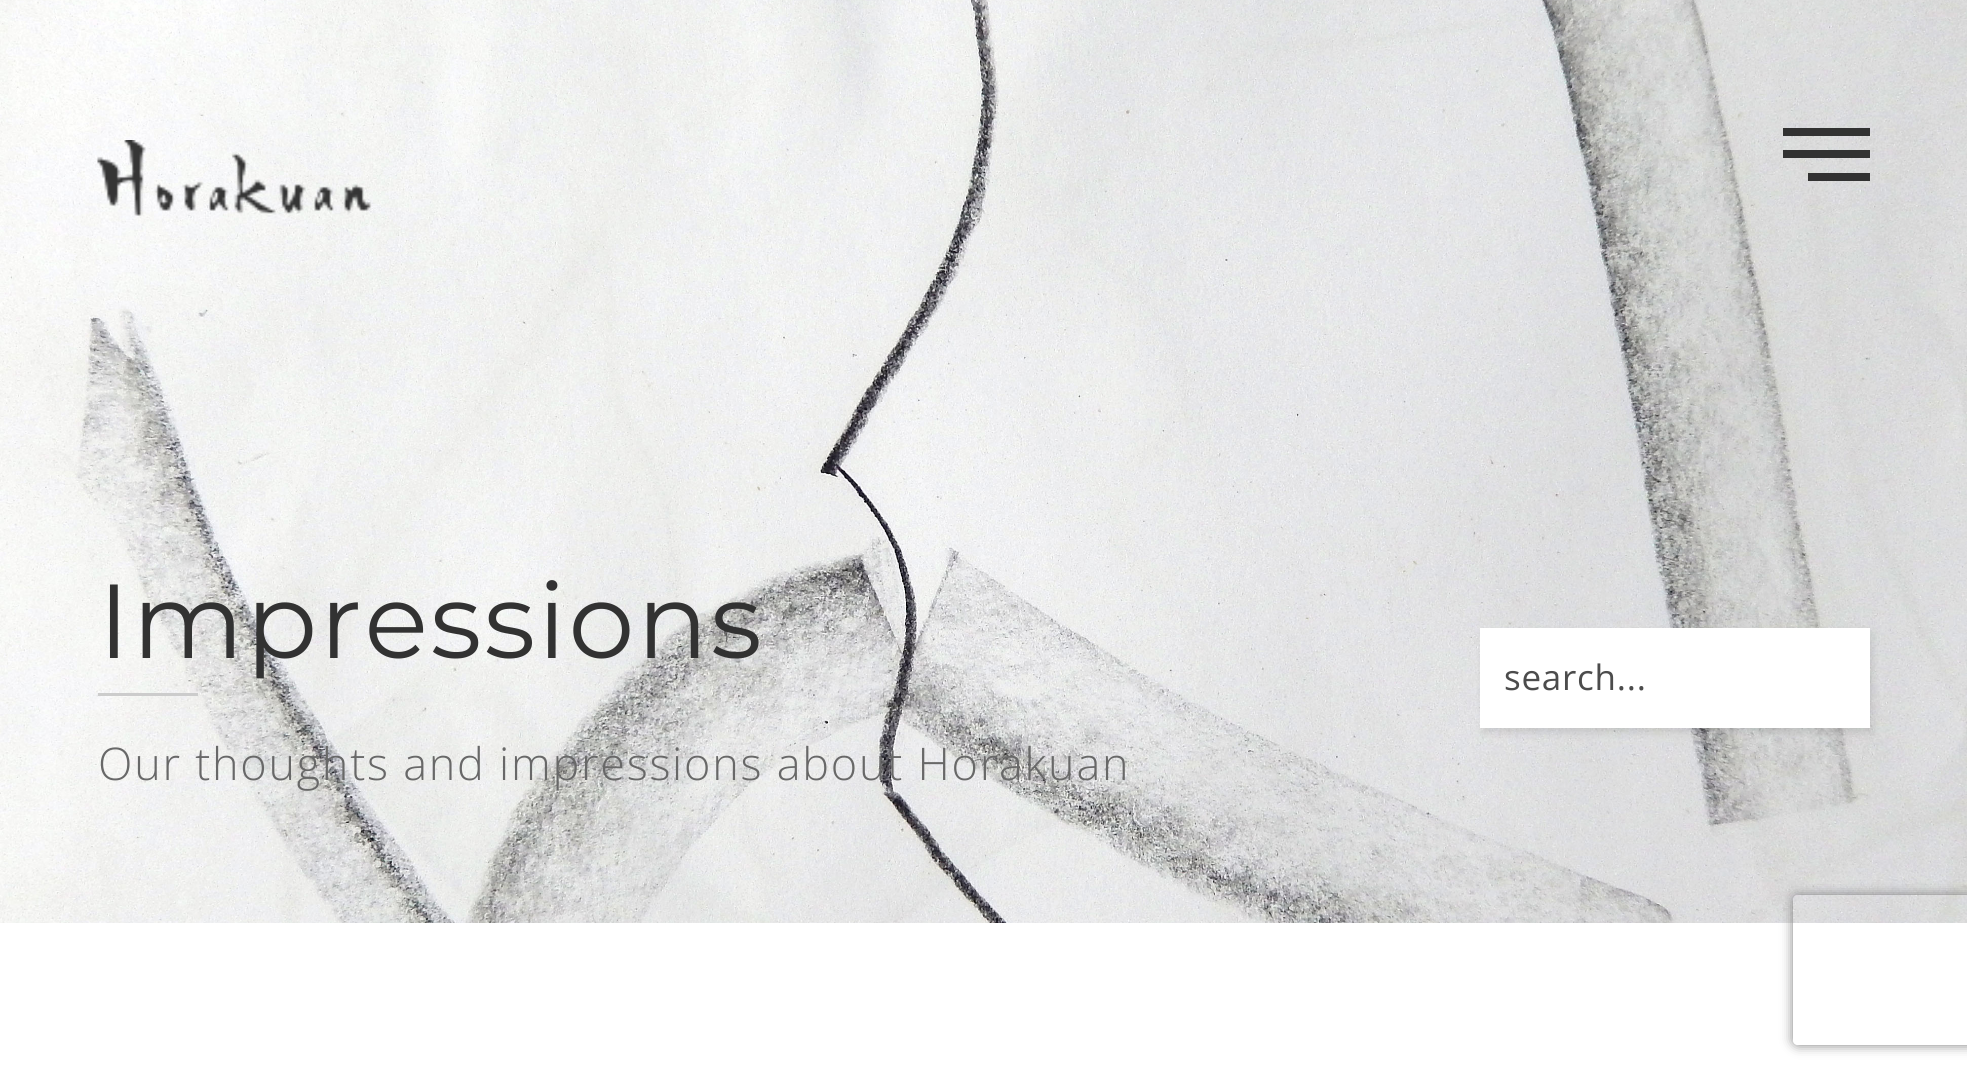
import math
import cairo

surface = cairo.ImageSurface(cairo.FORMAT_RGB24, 1967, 1079)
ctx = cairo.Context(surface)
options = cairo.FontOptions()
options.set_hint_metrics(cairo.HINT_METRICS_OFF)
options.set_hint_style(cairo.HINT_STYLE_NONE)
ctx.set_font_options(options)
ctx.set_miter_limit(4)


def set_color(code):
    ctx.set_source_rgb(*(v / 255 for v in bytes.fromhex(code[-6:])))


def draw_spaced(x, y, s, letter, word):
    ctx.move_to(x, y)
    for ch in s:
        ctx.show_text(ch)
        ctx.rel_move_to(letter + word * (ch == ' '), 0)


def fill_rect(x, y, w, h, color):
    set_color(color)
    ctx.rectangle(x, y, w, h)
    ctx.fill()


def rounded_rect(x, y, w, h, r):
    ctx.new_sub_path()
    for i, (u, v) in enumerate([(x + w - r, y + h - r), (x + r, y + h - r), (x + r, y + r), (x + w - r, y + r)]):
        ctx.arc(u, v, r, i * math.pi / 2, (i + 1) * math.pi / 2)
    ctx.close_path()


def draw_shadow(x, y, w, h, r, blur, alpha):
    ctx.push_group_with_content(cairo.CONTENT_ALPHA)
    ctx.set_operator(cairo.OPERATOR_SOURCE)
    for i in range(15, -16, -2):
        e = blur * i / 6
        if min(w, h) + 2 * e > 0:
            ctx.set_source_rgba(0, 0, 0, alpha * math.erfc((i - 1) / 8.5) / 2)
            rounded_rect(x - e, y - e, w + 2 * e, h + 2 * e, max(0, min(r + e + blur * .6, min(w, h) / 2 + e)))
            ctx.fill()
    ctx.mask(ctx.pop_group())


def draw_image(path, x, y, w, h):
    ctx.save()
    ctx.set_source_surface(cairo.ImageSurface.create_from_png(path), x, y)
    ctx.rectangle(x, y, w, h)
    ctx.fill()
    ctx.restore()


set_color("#ffffff")
ctx.paint()
draw_image("assets/img2.png", 0, 0, 1967, 923)
draw_image("assets/img1.png", 97, 140, 274, 76)
fill_rect(1783, 128, 87, 8, "#323232")
fill_rect(1783, 150, 87, 8, "#323232")
fill_rect(1808, 173, 62, 8, "#323232")
ctx.select_font_face("Montserrat")
ctx.set_font_size(105)
draw_spaced(98, 658, "Impressions", 2.5, 0)
fill_rect(98, 693, 100, 3, "#cccccc")
ctx.select_font_face("Open Sans Light")
ctx.set_font_size(45)
set_color("#686868")
draw_spaced(98, 780, "Our thoughts and impressions about Horakuan", 1.75, 0)
set_color("#000000")
draw_shadow(1483, 633, 390, 100, 0, 4, 0.1)
fill_rect(1480, 628, 390, 100, "#ffffff")
ctx.select_font_face("Open Sans")
ctx.set_font_size(35)
set_color("#4c4c4c")
draw_spaced(1504, 690, "search...", 0.75, 0)
ctx.save()
ctx.set_fill_rule(cairo.FILL_RULE_EVEN_ODD)
ctx.new_path()
ctx.move_to(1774, 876)
ctx.line_to(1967, 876)
ctx.line_to(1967, 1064)
ctx.line_to(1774, 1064)
ctx.close_path()
ctx.move_to(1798, 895)
ctx.line_to(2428, 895)
ctx.curve_to(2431, 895, 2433, 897, 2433, 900)
ctx.line_to(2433, 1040)
ctx.curve_to(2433, 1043, 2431, 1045, 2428, 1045)
ctx.line_to(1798, 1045)
ctx.curve_to(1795, 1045, 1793, 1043, 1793, 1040)
ctx.line_to(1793, 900)
ctx.curve_to(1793, 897, 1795, 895, 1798, 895)
ctx.close_path()
ctx.clip()
set_color("#808080")
draw_shadow(1793, 895, 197, 150, 5, 6, 1)
ctx.restore()
surface.write_to_png("output.png")
